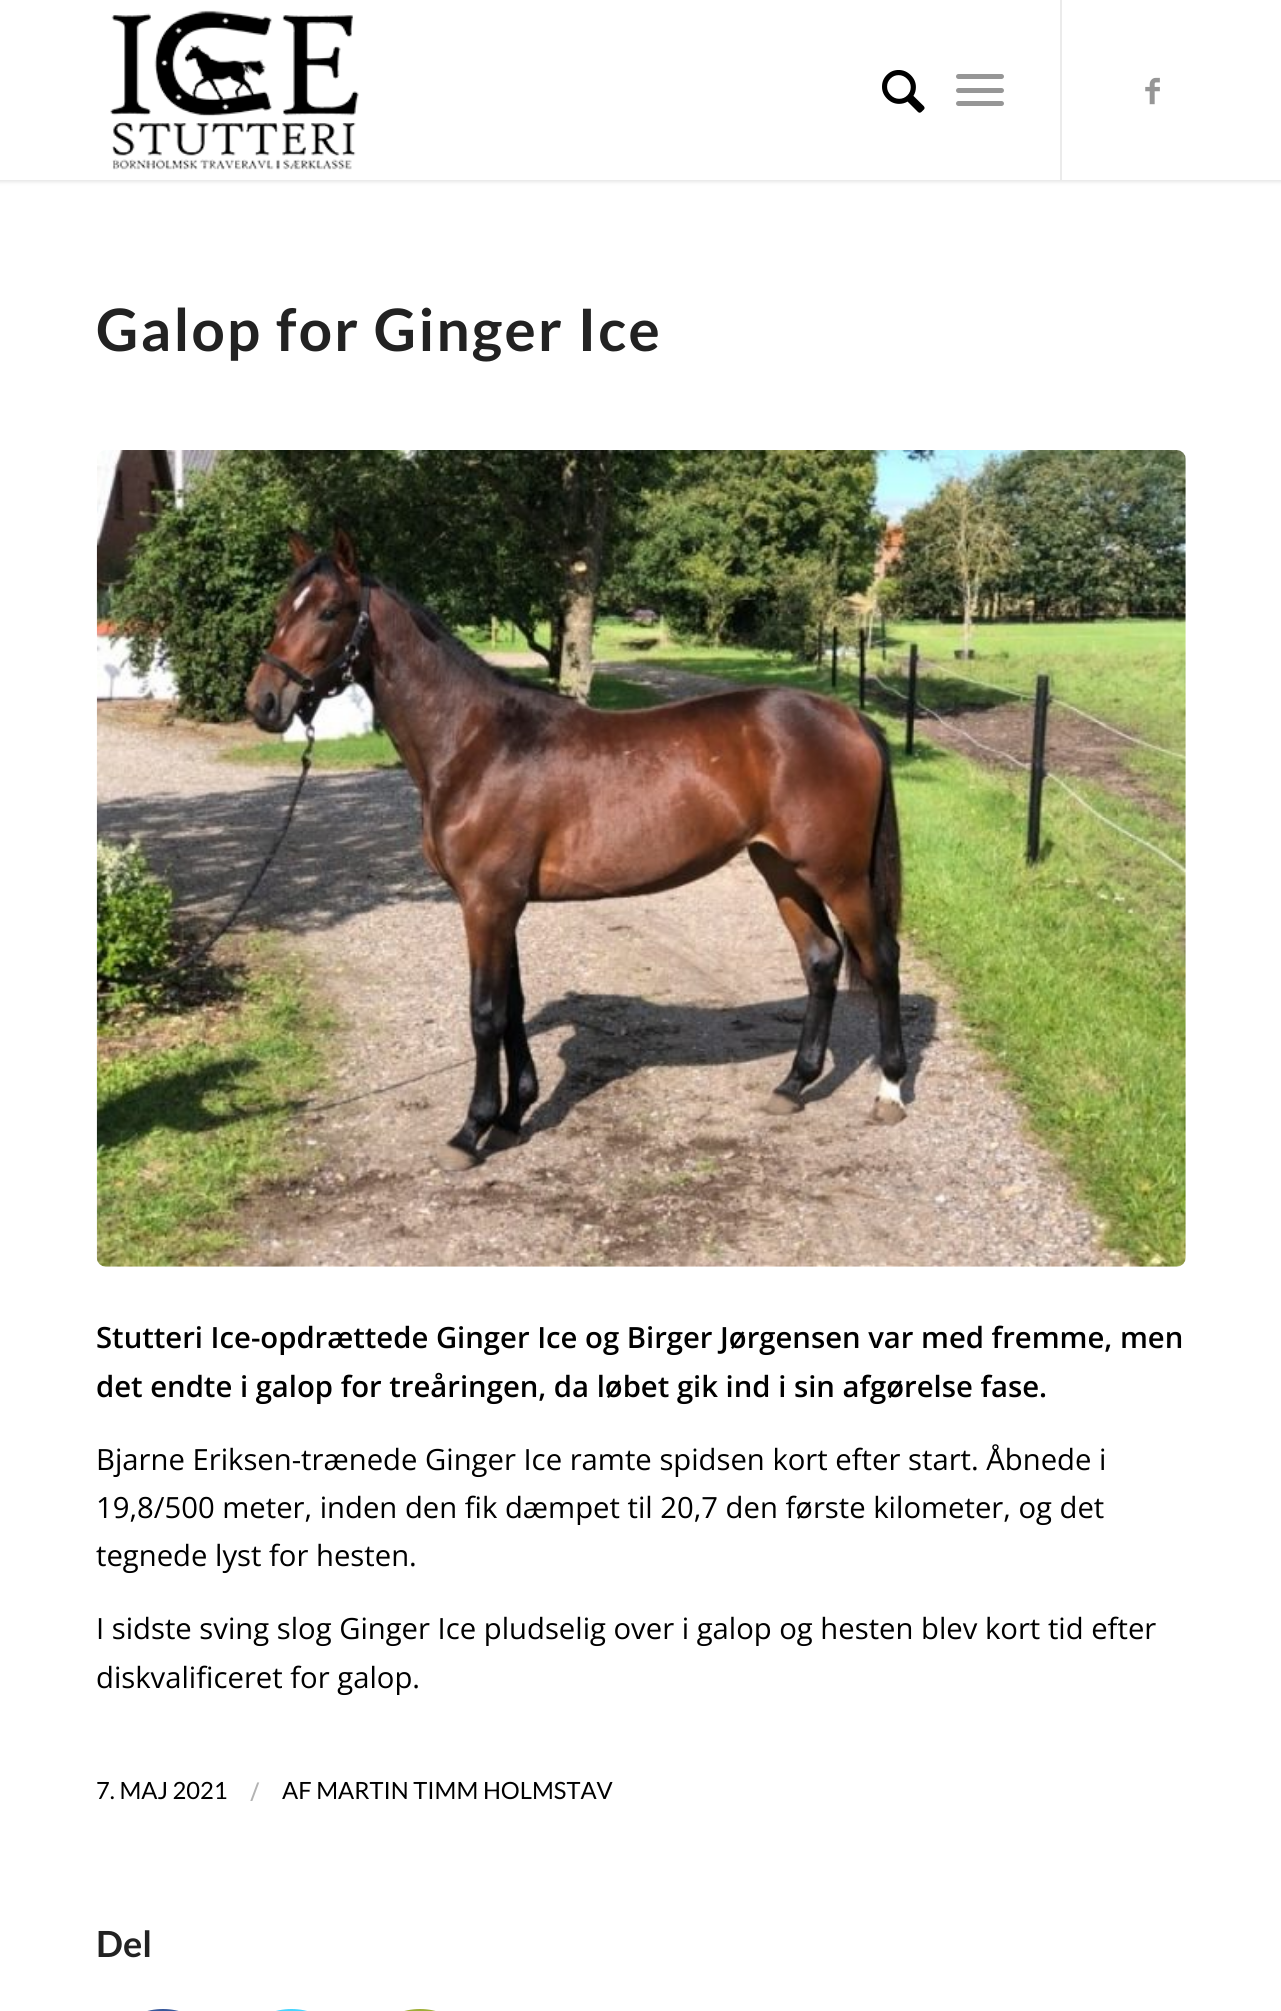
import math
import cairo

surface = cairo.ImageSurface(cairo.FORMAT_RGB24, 1281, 2011)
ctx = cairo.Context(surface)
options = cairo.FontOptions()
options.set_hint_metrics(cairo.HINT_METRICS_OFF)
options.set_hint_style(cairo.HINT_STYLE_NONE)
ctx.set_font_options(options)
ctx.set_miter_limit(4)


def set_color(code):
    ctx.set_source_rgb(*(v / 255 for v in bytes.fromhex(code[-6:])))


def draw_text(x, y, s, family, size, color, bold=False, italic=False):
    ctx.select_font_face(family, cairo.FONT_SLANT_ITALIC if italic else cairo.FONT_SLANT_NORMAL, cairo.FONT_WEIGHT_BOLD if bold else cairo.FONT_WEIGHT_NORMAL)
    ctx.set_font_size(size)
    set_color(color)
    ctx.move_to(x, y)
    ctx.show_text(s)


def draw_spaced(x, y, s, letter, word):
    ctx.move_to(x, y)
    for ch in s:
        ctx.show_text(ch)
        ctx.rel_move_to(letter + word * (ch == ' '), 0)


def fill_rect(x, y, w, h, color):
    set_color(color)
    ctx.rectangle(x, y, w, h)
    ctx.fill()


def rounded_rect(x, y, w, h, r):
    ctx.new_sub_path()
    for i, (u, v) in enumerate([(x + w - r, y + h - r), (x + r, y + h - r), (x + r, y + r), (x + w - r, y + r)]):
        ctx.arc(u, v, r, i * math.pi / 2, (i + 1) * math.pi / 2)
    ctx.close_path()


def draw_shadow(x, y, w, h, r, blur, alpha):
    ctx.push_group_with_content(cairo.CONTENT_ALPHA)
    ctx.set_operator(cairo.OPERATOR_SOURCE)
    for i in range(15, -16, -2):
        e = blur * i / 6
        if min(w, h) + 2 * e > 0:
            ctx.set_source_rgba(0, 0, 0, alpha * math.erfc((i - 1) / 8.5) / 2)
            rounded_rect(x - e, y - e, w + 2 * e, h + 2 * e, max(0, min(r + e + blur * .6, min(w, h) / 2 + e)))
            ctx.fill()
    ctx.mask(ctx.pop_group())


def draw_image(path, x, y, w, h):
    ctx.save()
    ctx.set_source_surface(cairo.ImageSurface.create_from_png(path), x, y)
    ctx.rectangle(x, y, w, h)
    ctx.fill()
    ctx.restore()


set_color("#ffffff")
ctx.paint()
set_color("#000000")
draw_shadow(-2, -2, 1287, 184, 0, 2, 0.1)
fill_rect(0, 0, 1281, 180, "#ffffff")
draw_image("assets/img1.png", 110, 10, 249, 160)
fill_rect(1060, 0, 2, 180, "#ebebeb")
draw_image("assets/img2.png", 882, 70, 43, 43)
set_color("#969696")
rounded_rect(956, 88, 48, 5, 2.5)
ctx.fill()
rounded_rect(956, 74, 48, 5, 2.5)
ctx.fill()
rounded_rect(956, 101, 48, 5, 2.5)
ctx.fill()
draw_image("assets/img3.png", 1145, 77, 15, 28)
ctx.select_font_face("Lato", cairo.FONT_SLANT_NORMAL, cairo.FONT_WEIGHT_BOLD)
ctx.set_font_size(58.5)
set_color("#222222")
draw_spaced(96, 351, "Galop for Ginger Ice", 2.25, 0)
draw_image("assets/img4.png", 96, 450, 1090, 817)
draw_text(96, 1348, "Stutteri Ice-opdrættede Ginger Ice og Birger Jørgensen var med fremme, men", "Open Sans SemiBold", 29.25, "#000000")
draw_text(96, 1397, "det endte i galop for treåringen, da løbet gik ind i sin afgørelse fase.", "Open Sans SemiBold", 29.25, "#000000")
draw_text(96, 1470, "Bjarne Eriksen-trænede Ginger Ice ramte spidsen kort efter start. Åbnede i", "Open Sans", 29.25, "#000000")
draw_text(96, 1518, "19,8/500 meter, inden den fik dæmpet til 20,7 den første kilometer, og det", "Open Sans", 29.25, "#000000")
draw_text(96, 1566, "tegnede lyst for hesten.", "Open Sans", 29.25, "#000000")
draw_text(96, 1639, "I sidste sving slog Ginger Ice pludselig over i galop og hesten blev kort tid efter", "Open Sans", 29.25, "#000000")
draw_text(96, 1688, "diskvalificeret for galop.", "Open Sans", 29.25, "#000000")
draw_text(96, 1799, "7. MAJ 2021", "Lato", 23.75, "#000000")
draw_text(250, 1801, "/", "Open Sans", 26, "#b3b3b3")
draw_text(282, 1799, "AF MARTIN TIMM HOLMSTAV", "Lato", 23.75, "#000000")
draw_text(96, 1957, "Del", "Lato", 36, "#222222", bold=True)
set_color("#37589b")
rounded_rect(101, 2009, 124, 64, 62)
ctx.fill()
set_color("#46d4fe")
rounded_rect(230, 2009, 123, 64, 61.5)
ctx.fill()
set_color("#9fae37")
rounded_rect(358, 2009, 124, 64, 62)
ctx.fill()
surface.write_to_png("output.png")
